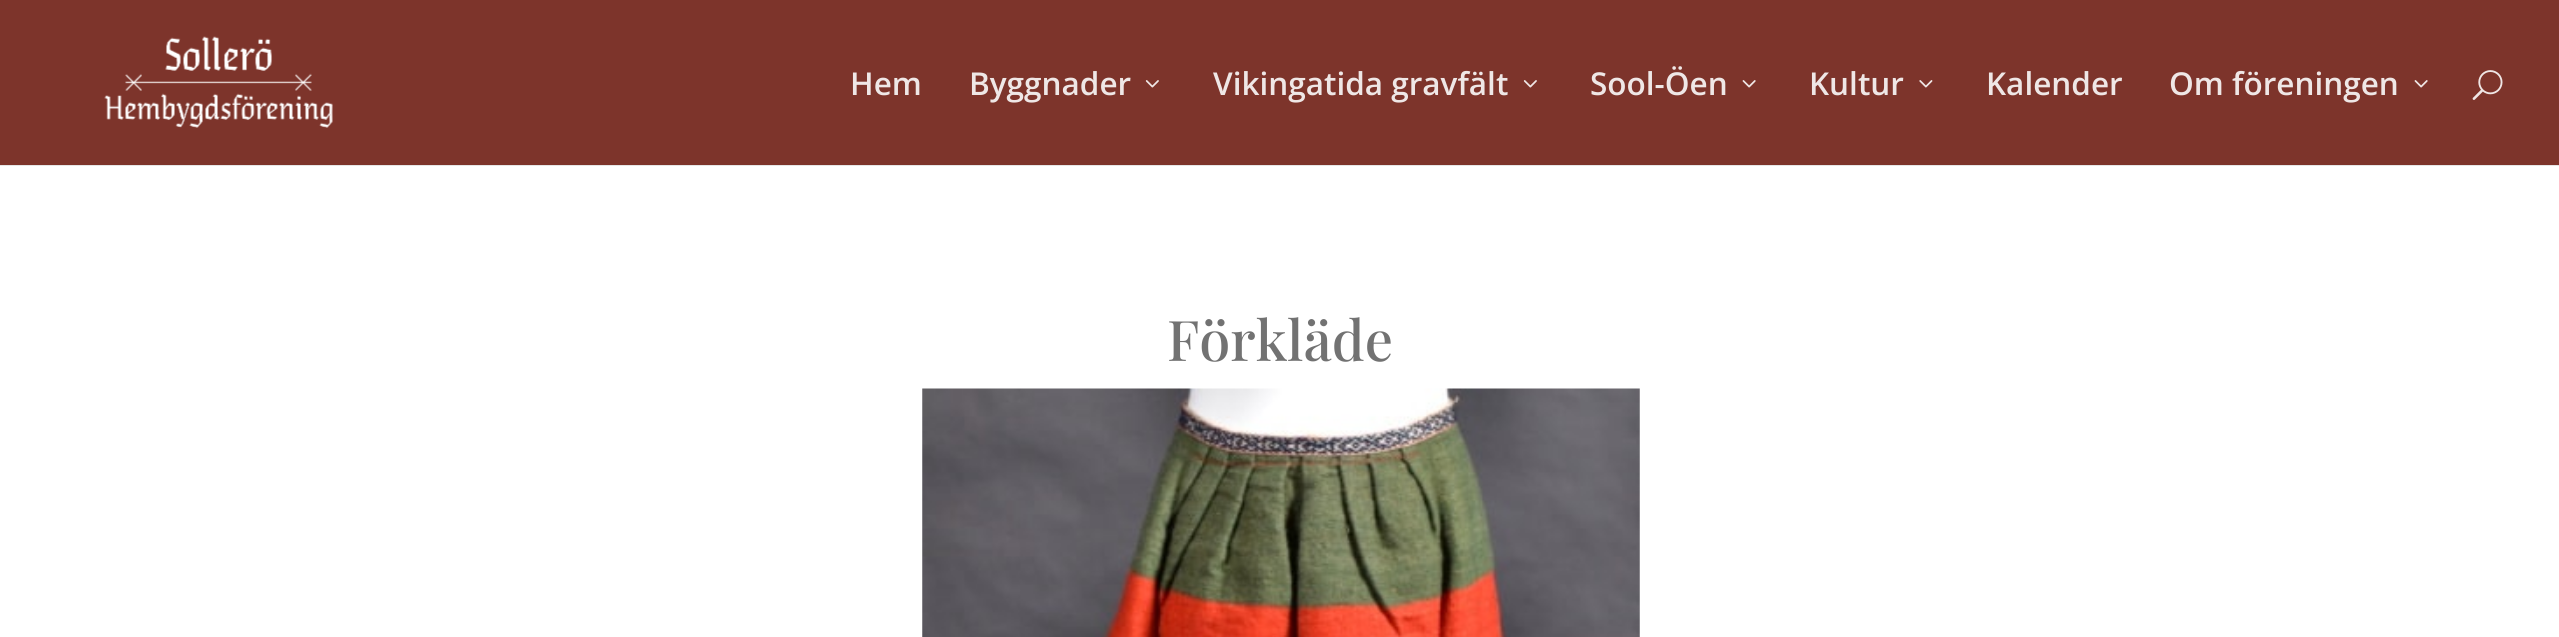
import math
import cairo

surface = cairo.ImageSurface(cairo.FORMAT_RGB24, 2559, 637)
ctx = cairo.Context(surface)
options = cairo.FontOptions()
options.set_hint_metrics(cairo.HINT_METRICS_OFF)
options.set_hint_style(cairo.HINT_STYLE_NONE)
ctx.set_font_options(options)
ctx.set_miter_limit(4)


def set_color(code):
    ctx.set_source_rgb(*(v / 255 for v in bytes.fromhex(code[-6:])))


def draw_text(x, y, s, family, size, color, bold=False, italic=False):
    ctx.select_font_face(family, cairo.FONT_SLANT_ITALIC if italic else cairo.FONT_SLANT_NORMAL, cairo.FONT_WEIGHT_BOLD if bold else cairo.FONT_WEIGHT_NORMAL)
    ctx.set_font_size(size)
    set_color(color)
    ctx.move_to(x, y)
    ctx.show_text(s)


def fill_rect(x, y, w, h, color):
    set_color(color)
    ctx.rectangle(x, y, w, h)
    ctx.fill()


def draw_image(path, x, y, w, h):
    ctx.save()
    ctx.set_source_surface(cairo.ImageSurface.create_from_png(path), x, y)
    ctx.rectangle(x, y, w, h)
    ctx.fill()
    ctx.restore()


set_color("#ffffff")
ctx.paint()
fill_rect(0, 165, 2559, 1, "#e6e6e6")
fill_rect(0, 0, 2559, 165, "#7d342b")
draw_image("assets/img1.png", 104, 36, 229, 92)
draw_text(850, 95, "Hem", "Open Sans SemiBold", 31.5, "#efe7e6")
draw_text(969, 95, "Byggnader", "Open Sans SemiBold", 31.5, "#efe7e6")
draw_image("assets/img2.png", 1145, 80, 14, 8)
draw_text(1213, 95, "Vikingatida gravfält", "Open Sans SemiBold", 31.5, "#efe7e6")
draw_image("assets/img2.png", 1523, 80, 14, 8)
draw_text(1590, 95, "Sool-Öen", "Open Sans SemiBold", 31.5, "#efe7e6")
draw_image("assets/img3.png", 1742, 80, 14, 8)
draw_text(1809, 95, "Kultur", "Open Sans SemiBold", 31.5, "#efe7e6")
draw_image("assets/img4.png", 1919, 80, 14, 8)
draw_text(1986, 95, "Kalender", "Open Sans SemiBold", 31.5, "#efe7e6")
draw_text(2169, 95, "Om föreningen", "Open Sans SemiBold", 31.5, "#efe7e6")
draw_image("assets/img3.png", 2414, 80, 14, 8)
draw_image("assets/img5.png", 2472, 70, 31, 30)
draw_text(1167, 361, "Förkläde", "Playfair Display Medium", 56, "#727272")
draw_image("assets/img6.png", 922, 388, 718, 249)
surface.write_to_png("output.png")
